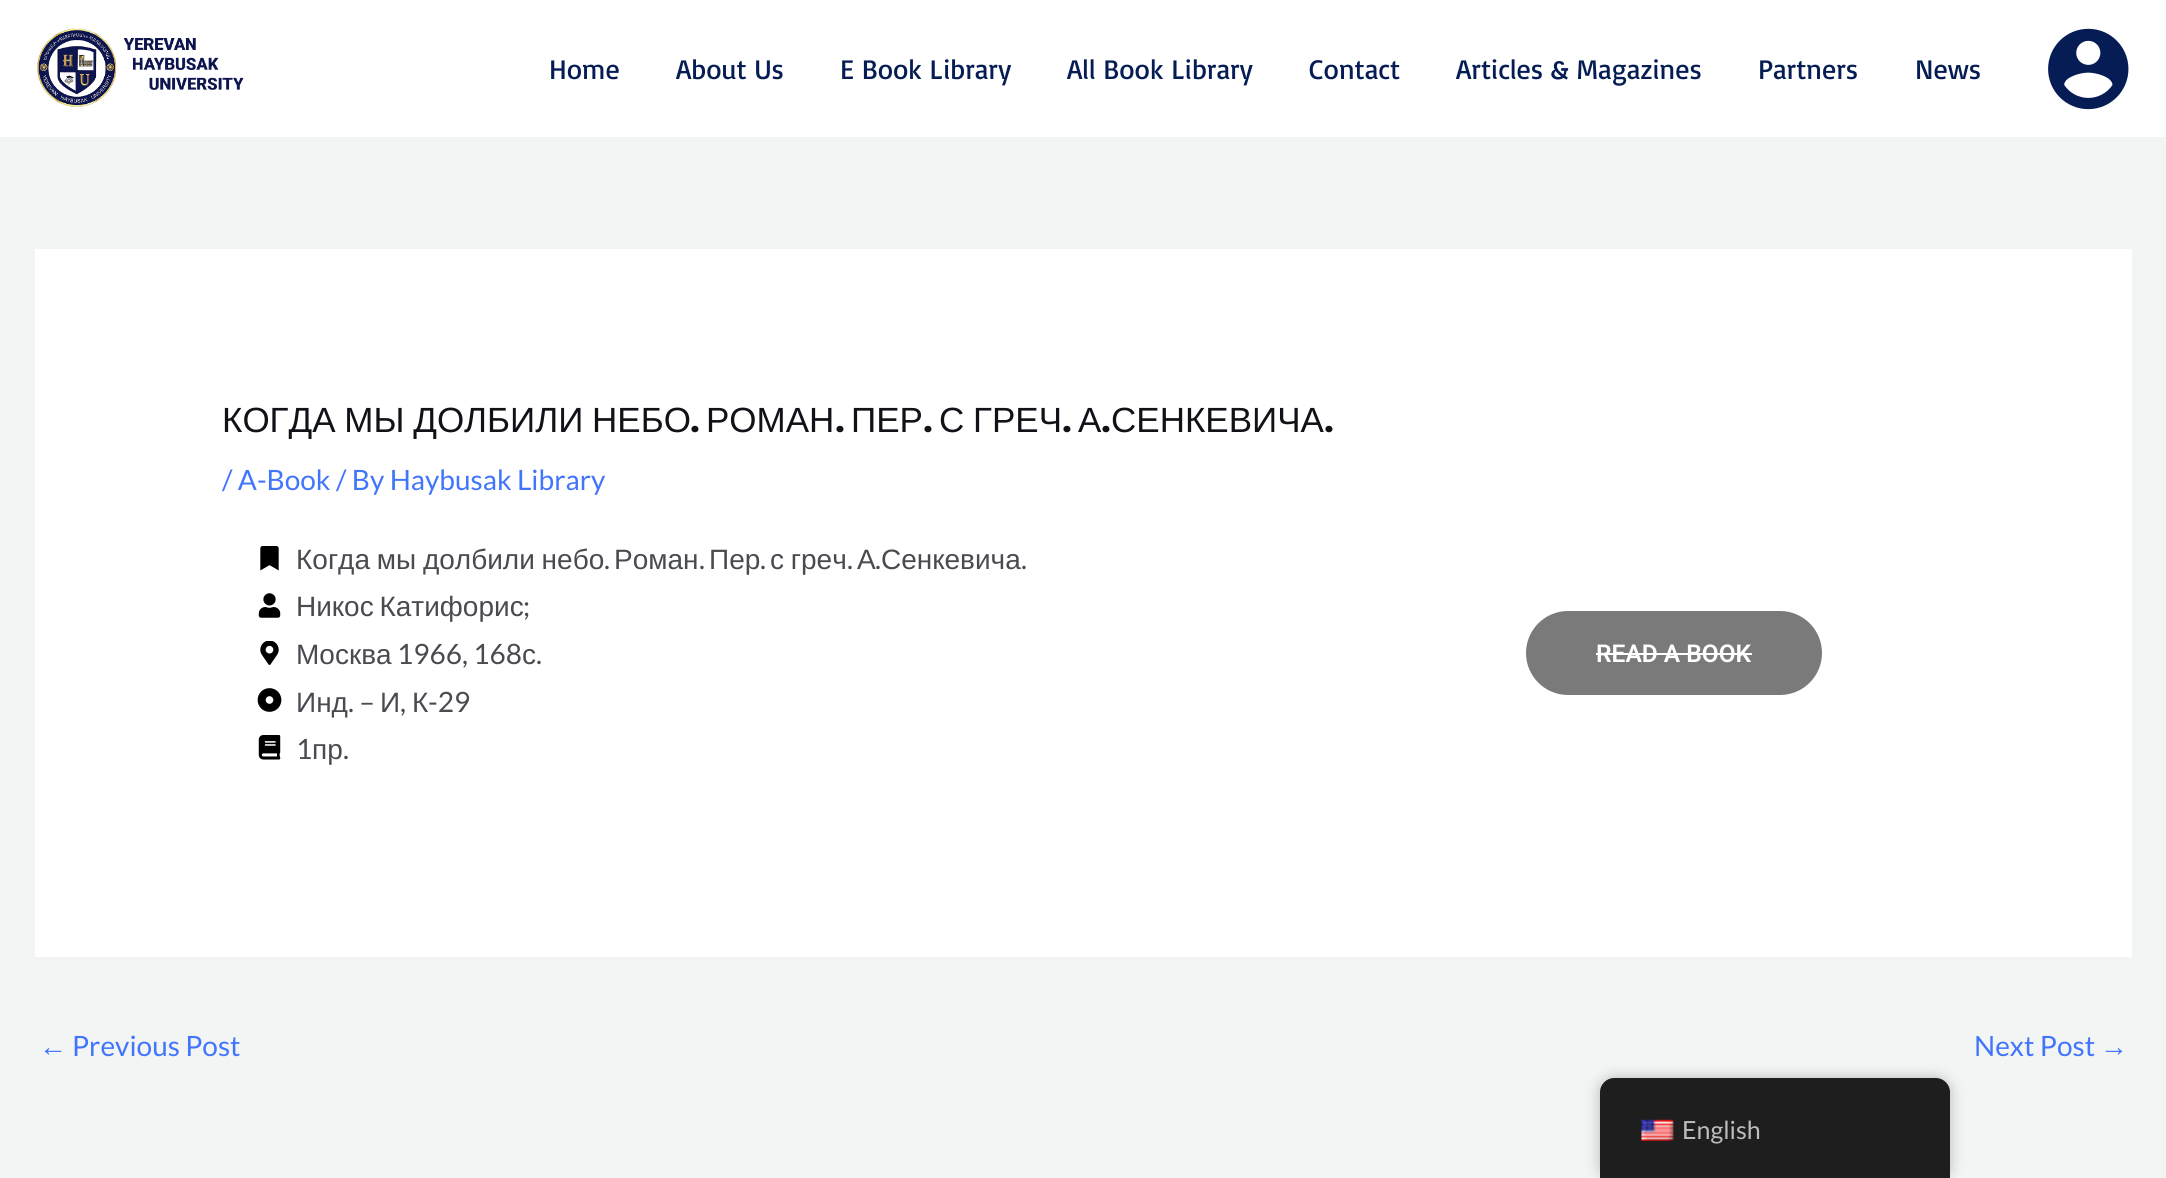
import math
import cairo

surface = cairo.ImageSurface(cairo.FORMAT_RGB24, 2166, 1178)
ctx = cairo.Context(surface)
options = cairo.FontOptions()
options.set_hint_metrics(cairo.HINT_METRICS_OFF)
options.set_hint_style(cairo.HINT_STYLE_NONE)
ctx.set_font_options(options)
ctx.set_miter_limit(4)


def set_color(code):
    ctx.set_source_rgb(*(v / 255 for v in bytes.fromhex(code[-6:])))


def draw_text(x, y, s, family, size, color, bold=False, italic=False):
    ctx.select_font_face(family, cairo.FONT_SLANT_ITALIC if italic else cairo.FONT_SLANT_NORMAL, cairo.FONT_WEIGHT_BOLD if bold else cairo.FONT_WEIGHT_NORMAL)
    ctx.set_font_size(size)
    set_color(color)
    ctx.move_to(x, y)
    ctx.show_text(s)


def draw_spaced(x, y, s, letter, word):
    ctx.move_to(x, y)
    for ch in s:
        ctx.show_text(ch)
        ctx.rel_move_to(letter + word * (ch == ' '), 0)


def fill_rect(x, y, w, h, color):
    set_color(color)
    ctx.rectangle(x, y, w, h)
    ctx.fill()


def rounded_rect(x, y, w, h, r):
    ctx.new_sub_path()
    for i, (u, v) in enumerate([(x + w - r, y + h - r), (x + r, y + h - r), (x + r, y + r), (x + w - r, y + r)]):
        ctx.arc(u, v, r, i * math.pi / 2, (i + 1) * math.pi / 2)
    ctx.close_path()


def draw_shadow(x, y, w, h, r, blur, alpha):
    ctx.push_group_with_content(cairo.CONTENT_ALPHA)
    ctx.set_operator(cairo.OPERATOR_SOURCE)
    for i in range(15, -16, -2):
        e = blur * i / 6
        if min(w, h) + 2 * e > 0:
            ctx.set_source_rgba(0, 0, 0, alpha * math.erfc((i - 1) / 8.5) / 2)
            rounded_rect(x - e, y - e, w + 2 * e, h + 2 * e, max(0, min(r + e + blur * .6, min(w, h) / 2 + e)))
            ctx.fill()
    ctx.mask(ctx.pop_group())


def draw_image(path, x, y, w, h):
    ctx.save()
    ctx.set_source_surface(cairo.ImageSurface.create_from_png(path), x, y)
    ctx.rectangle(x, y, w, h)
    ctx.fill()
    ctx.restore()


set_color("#f3f5f5")
ctx.paint()
fill_rect(0, 0, 2166, 137, "#ffffff")
draw_image("assets/img1.png", 37, 28, 207, 79)
draw_text(549, 79, "Home", "Basic", 28, "#061c54")
draw_text(676, 79, "About Us", "Basic", 28, "#061c54")
draw_text(840, 79, "E Book Library", "Basic", 28, "#061c54")
draw_text(1067, 79, "All Book Library", "Basic", 28, "#061c54")
draw_text(1309, 79, "Contact", "Basic", 28, "#061c54")
draw_text(1456, 79, "Articles & Magazines", "Basic", 28, "#061c54")
draw_text(1758, 79, "Partners", "Basic", 28, "#061c54")
draw_text(1915, 79, "News", "Basic", 28, "#061c54")
draw_image("assets/img2.png", 2048, 28, 81, 82)
fill_rect(35, 249, 2097, 708, "#ffffff")
ctx.select_font_face("Liberation Sans")
ctx.set_font_size(35)
set_color("#101218")
draw_spaced(222, 432, "КОГДА МЫ ДОЛБИЛИ НЕБО", 0, -1)
draw_text(690, 432, ".", "Poppins", 35, "#101218", bold=True)
draw_text(706, 432, "РОМАН", "Liberation Sans", 35, "#101218")
draw_text(835, 432, ".", "Poppins", 35, "#101218", bold=True)
draw_text(851, 432, "ПЕР", "Liberation Sans", 35, "#101218")
draw_text(923, 432, ".", "Poppins", 35, "#101218", bold=True)
ctx.select_font_face("Liberation Sans")
draw_spaced(939, 432, "С ГРЕЧ", 0, -1)
draw_text(1062, 432, ".", "Poppins", 35, "#101218", bold=True)
draw_text(1078, 432, "А СЕНКЕВИЧА", "Liberation Sans", 35, "#101218")
draw_text(1101, 432, ".", "Poppins", 35, "#101218", bold=True)
draw_text(1324, 432, ".", "Poppins", 35, "#101218", bold=True)
draw_text(222, 490, "/ A-Book / By Haybusak Library", "Lato", 28, "#4175fc")
draw_image("assets/img3.png", 260, 546, 19, 25)
ctx.select_font_face("Liberation Sans")
set_color("#494b51")
draw_spaced(296, 569, "Когда мы долбили небо", 0, -1)
draw_text(604, 569, ".", "Lato", 28, "#494b51")
draw_text(614, 569, "Роман", "Liberation Sans", 28, "#494b51")
draw_text(699, 569, ".", "Lato", 28, "#494b51")
draw_text(709, 569, "Пер", "Liberation Sans", 28, "#494b51")
draw_text(760, 569, ".", "Lato", 28, "#494b51")
ctx.select_font_face("Liberation Sans")
draw_spaced(770, 569, "с греч", 0, -1)
draw_text(847, 569, ".", "Lato", 28, "#494b51")
draw_text(857, 569, "А", "Liberation Sans", 28, "#494b51")
draw_text(875, 569, ".", "Lato", 28, "#494b51")
draw_text(881, 569, "Сенкевича", "Liberation Sans", 28, "#494b51")
draw_text(1021, 569, ".", "Lato", 28, "#494b51")
draw_image("assets/img4.png", 258, 593, 23, 25)
ctx.select_font_face("Liberation Sans")
draw_spaced(296, 616, "Никос Катифорис", 0, -2)
draw_text(523, 616, ";", "Lato", 28, "#494b51")
draw_image("assets/img5.png", 260, 641, 19, 24)
draw_text(296, 664, "Москва", "Liberation Sans", 28, "#494b51")
draw_text(397, 664, "1966, 168", "Lato", 28, "#494b51")
draw_text(522, 664, "с", "Liberation Sans", 28, "#494b51")
draw_text(536, 664, ".", "Lato", 28, "#494b51")
draw_image("assets/img6.png", 257, 688, 25, 24)
draw_text(296, 712, "Инд", "Liberation Sans", 28, "#494b51")
draw_text(348, 712, ". –", "Lato", 28, "#494b51")
draw_text(380, 712, "И", "Liberation Sans", 28, "#494b51")
draw_text(400, 712, ",", "Lato", 28, "#494b51")
draw_text(412, 712, "К", "Liberation Sans", 28, "#494b51")
draw_text(428, 712, "-29", "Lato", 28, "#494b51")
draw_image("assets/img7.png", 258, 735, 23, 25)
draw_text(296, 759, "1", "Lato", 28, "#494b51")
draw_text(312, 759, "пр", "Liberation Sans", 28, "#494b51")
draw_text(343, 759, ".", "Lato", 28, "#494b51")
set_color("#7a7a7a")
rounded_rect(1526, 611, 296, 84, 42)
ctx.fill()
draw_text(1596, 662, "READ A BOOK", "Roboto SemiBold", 24.5, "#ffffff")
fill_rect(1596, 653, 156, 2, "#ffffff")
draw_text(39, 1056, "←", "Liberation Sans", 28, "#4175fc")
draw_text(72, 1056, "Previous Post", "Lato", 28, "#4175fc")
draw_text(1974, 1056, "Next Post", "Lato", 28, "#4175fc")
draw_text(2100, 1056, "→", "Liberation Sans", 28, "#4175fc")
set_color("#000000")
draw_shadow(1600, 1078, 350, 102, 14, 7, 0.25)
set_color("#1e1e1e")
ctx.new_path()
ctx.move_to(1614, 1078)
ctx.line_to(1936, 1078)
ctx.curve_to(1943.5, 1078, 1950, 1084.5, 1950, 1092)
ctx.line_to(1950, 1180)
ctx.line_to(1600, 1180)
ctx.line_to(1600, 1092)
ctx.curve_to(1600, 1084.5, 1606.5, 1078, 1614, 1078)
ctx.close_path()
ctx.fill()
draw_image("assets/img8.png", 1641, 1119, 33, 22)
draw_text(1682, 1139, "English", "Lato", 25, "#bdbdbd")
surface.write_to_png("output.png")
